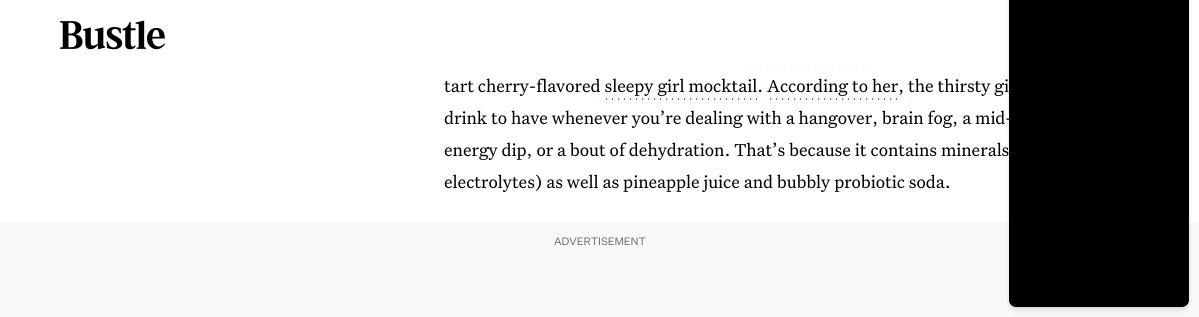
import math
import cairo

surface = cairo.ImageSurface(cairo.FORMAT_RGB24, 1199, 317)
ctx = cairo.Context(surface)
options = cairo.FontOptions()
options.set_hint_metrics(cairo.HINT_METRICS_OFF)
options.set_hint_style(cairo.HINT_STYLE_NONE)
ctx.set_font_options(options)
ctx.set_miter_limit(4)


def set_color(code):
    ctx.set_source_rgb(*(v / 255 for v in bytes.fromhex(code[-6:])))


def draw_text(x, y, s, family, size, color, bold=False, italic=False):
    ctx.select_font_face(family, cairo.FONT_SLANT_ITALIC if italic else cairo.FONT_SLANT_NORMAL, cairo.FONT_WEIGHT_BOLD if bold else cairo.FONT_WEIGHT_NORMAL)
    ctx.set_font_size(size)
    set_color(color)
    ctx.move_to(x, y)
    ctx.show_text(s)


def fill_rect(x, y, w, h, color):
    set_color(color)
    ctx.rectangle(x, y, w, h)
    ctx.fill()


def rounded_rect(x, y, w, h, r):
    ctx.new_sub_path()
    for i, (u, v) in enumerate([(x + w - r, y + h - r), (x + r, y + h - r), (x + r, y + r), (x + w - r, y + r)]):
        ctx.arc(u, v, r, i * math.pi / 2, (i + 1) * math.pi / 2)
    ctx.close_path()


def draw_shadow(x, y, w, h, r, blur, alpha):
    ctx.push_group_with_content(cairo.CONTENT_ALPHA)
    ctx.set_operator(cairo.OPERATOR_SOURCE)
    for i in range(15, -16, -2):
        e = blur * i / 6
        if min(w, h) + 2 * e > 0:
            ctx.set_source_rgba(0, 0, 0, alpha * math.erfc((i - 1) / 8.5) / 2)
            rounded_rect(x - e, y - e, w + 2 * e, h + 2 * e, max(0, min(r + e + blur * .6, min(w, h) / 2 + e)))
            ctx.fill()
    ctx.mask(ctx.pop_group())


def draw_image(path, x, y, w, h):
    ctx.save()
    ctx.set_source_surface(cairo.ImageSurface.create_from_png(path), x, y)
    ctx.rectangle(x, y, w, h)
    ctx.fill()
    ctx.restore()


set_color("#ffffff")
ctx.paint()
draw_image("assets/img1.png", 60, 20, 105, 30)
fill_rect(0, 222, 1199, 95, "#f8f8f8")
set_color("#000000")
draw_shadow(1011, -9, 176, 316, 5, 2, 0.1)
draw_shadow(1010, -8, 178, 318, 6, 3, 0.1)
set_color("#000000")
rounded_rect(1009, -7, 180, 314, 7)
ctx.fill()
draw_image("assets/img2.png", 748, 66, 127, 2)
draw_text(444, 92, "tart cherry-flavored sleepy girl mocktail. According to her, the thirsty gi", "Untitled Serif", 18.4, "#000000")
draw_image("assets/img3.png", 606, 98, 151, 2)
draw_image("assets/img4.png", 770, 98, 127, 2)
draw_text(444, 124, "drink to have whenever you’re dealing with a hangover, brain fog, a mid-", "Untitled Serif", 18.4, "#000000")
draw_text(444, 156, "energy dip, or a bout of dehydration. That’s because it contains minerals", "Untitled Serif", 18.4, "#000000")
draw_text(444, 188, "electrolytes) as well as pineapple juice and bubbly probiotic soda.", "Untitled Serif", 18.4, "#000000")
draw_text(554, 245, "ADVERTISEMENT", "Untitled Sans", 10.5, "#636363")
surface.write_to_png("output.png")
